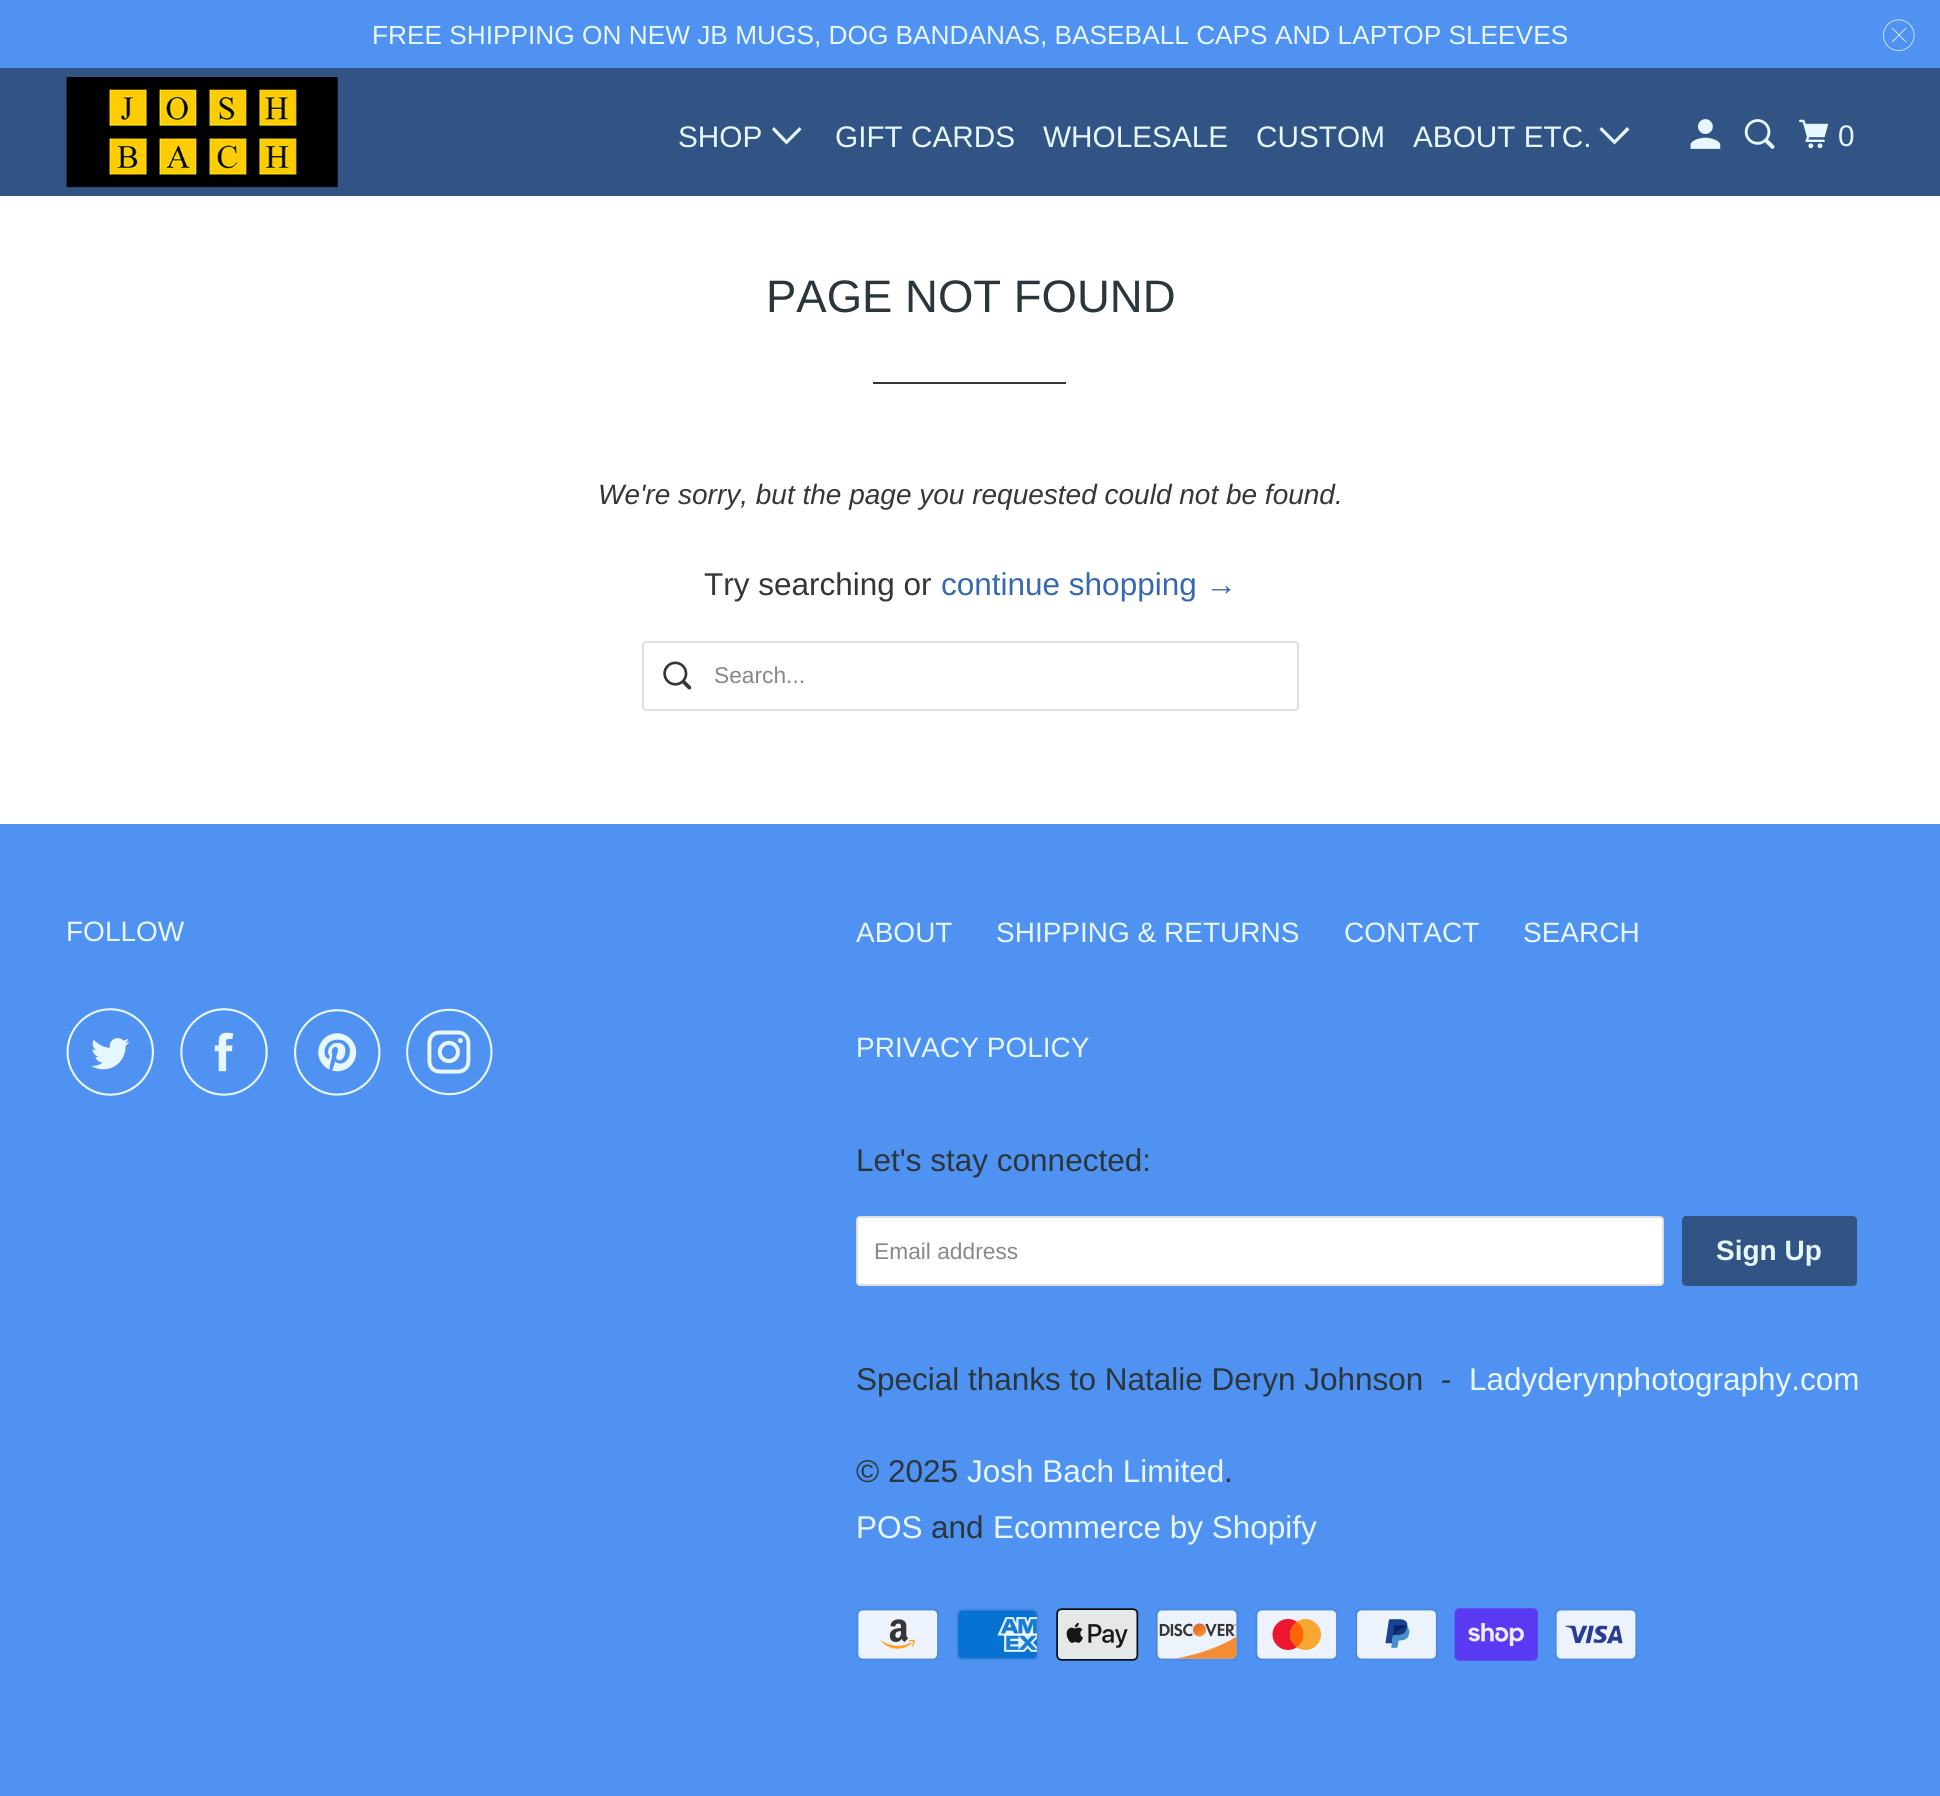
import math
import cairo

surface = cairo.ImageSurface(cairo.FORMAT_RGB24, 1940, 1796)
ctx = cairo.Context(surface)
options = cairo.FontOptions()
options.set_hint_metrics(cairo.HINT_METRICS_OFF)
options.set_hint_style(cairo.HINT_STYLE_NONE)
ctx.set_font_options(options)
ctx.set_miter_limit(4)


def set_color(code):
    ctx.set_source_rgb(*(v / 255 for v in bytes.fromhex(code[-6:])))


def draw_text(x, y, s, family, size, color, bold=False, italic=False):
    ctx.select_font_face(family, cairo.FONT_SLANT_ITALIC if italic else cairo.FONT_SLANT_NORMAL, cairo.FONT_WEIGHT_BOLD if bold else cairo.FONT_WEIGHT_NORMAL)
    ctx.set_font_size(size)
    set_color(color)
    ctx.move_to(x, y)
    ctx.show_text(s)


def fill_rect(x, y, w, h, color):
    set_color(color)
    ctx.rectangle(x, y, w, h)
    ctx.fill()


def rounded_rect(x, y, w, h, r):
    ctx.new_sub_path()
    for i, (u, v) in enumerate([(x + w - r, y + h - r), (x + r, y + h - r), (x + r, y + r), (x + w - r, y + r)]):
        ctx.arc(u, v, r, i * math.pi / 2, (i + 1) * math.pi / 2)
    ctx.close_path()


def draw_image(path, x, y, w, h):
    ctx.save()
    ctx.set_source_surface(cairo.ImageSurface.create_from_png(path), x, y)
    ctx.rectangle(x, y, w, h)
    ctx.fill()
    ctx.restore()


set_color("#5092f1")
ctx.paint()
draw_text(372, 44, "FREE SHIPPING ON NEW JB MUGS, DOG BANDANAS, BASEBALL CAPS AND LAPTOP SLEEVES", "Liberation Sans", 26.25, "#e7f7ff")
draw_image("assets/img1.png", 1883, 19, 32, 32)
fill_rect(0, 68, 1940, 128, "#325484")
draw_image("assets/img2.png", 66, 77, 272, 111)
draw_text(678, 147, "SHOP", "Liberation Sans", 29.75, "#e7f7ff")
ctx.new_path()
ctx.move_to(779, 137)
ctx.line_to(772, 129.5)
ctx.line_to(774, 127)
ctx.line_to(786.5, 140)
ctx.line_to(799.5, 127)
ctx.line_to(801.5, 129.5)
ctx.line_to(786.5, 144.5)
ctx.close_path()
ctx.fill()
draw_text(835, 147, "GIFT CARDS", "Liberation Sans", 29.75, "#e7f7ff")
draw_text(1043, 147, "WHOLESALE", "Liberation Sans", 29.75, "#e7f7ff")
draw_text(1256, 147, "CUSTOM", "Liberation Sans", 29.75, "#e7f7ff")
draw_text(1413, 147, "ABOUT ETC.", "Liberation Sans", 29.75, "#e7f7ff")
ctx.new_path()
ctx.move_to(1607, 137)
ctx.line_to(1599.5, 129.5)
ctx.line_to(1601.5, 127)
ctx.line_to(1614.5, 140)
ctx.line_to(1627, 127)
ctx.line_to(1629.5, 129.5)
ctx.line_to(1614.5, 144.5)
ctx.close_path()
ctx.fill()
draw_image("assets/img3.png", 1690, 119, 31, 30)
draw_image("assets/img4.png", 1744, 119, 31, 30)
draw_image("assets/img5.png", 1799, 119, 30, 30)
draw_text(1838, 146, "0", "Liberation Sans", 29.75, "#e7f7ff")
fill_rect(0, 196, 1940, 628, "#ffffff")
draw_text(766, 312, "PAGE NOT FOUND", "Liberation Sans", 45.5, "#2a363b")
fill_rect(873, 382, 193, 2, "#363636")
draw_text(598, 504, "We're sorry, but the page you requested could not be found.", "Liberation Sans", 28, "#363636", italic=True)
draw_text(704, 595, "Try searching or", "Liberation Sans", 31.5, "#363636")
draw_text(941, 595, "continue shopping →", "Liberation Sans", 31.5, "#3669b1")
rounded_rect(643, 642, 655, 68, 3)
set_color("#dfdfdf")
ctx.stroke()
draw_image("assets/img6.png", 663, 661, 29, 29)
draw_text(714, 683, "Search...", "Liberation Sans", 22.75, "#888888")
draw_text(66, 941, "FOLLOW", "Liberation Sans", 28, "#e7f7ff")
draw_image("assets/img7.png", 66, 1008, 88, 88)
draw_image("assets/img8.png", 180, 1008, 88, 88)
draw_image("assets/img9.png", 294, 1009, 87, 87)
draw_image("assets/img10.png", 406, 1008, 87, 88)
draw_text(856, 942, "ABOUT", "Liberation Sans", 28, "#e7f7ff")
draw_text(996, 942, "SHIPPING & RETURNS", "Liberation Sans", 28, "#e7f7ff")
draw_text(1344, 942, "CONTACT", "Liberation Sans", 28, "#e7f7ff")
draw_text(1523, 942, "SEARCH", "Liberation Sans", 28, "#e7f7ff")
draw_text(856, 1057, "PRIVACY POLICY", "Liberation Sans", 28, "#e7f7ff")
draw_text(856, 1171, "Let's stay connected:", "Liberation Sans", 31.5, "#2a363b")
set_color("#ffffff")
rounded_rect(857, 1217, 806, 68, 3)
ctx.fill_preserve()
set_color("#dfdfdf")
ctx.stroke()
draw_text(874, 1259, "Email address", "Liberation Sans", 22.75, "#888888")
set_color("#325484")
rounded_rect(1682, 1216, 175, 70, 4)
ctx.fill()
draw_text(1716, 1260, "Sign Up", "Liberation Sans", 28, "#e7f7ff", bold=True)
draw_text(856, 1390, "Special thanks to Natalie Deryn Johnson  -", "Liberation Sans", 31.5, "#2a363b")
draw_text(1469, 1390, "Ladyderynphotography.com", "Liberation Sans", 31.5, "#e7f7ff")
draw_text(856, 1482, "© 2025", "Liberation Sans", 31.5, "#2a363b")
draw_text(967, 1482, "Josh Bach Limited", "Liberation Sans", 31.5, "#e7f7ff")
draw_text(1224, 1482, ".", "Liberation Sans", 31.5, "#2a363b")
draw_text(856, 1538, "POS", "Liberation Sans", 31.5, "#e7f7ff")
draw_text(931, 1538, "and", "Liberation Sans", 31.5, "#2a363b")
draw_text(993, 1538, "Ecommerce by Shopify", "Liberation Sans", 31.5, "#e7f7ff")
draw_image("assets/img11.png", 856, 1608, 83, 53)
draw_image("assets/img12.png", 956, 1608, 83, 53)
draw_image("assets/img13.png", 1056, 1608, 83, 53)
draw_image("assets/img14.png", 1155, 1608, 84, 53)
draw_image("assets/img15.png", 1255, 1608, 83, 53)
draw_image("assets/img16.png", 1355, 1608, 83, 53)
draw_image("assets/img17.png", 1454, 1608, 84, 53)
draw_image("assets/img18.png", 1554, 1608, 84, 53)
surface.write_to_png("output.png")
